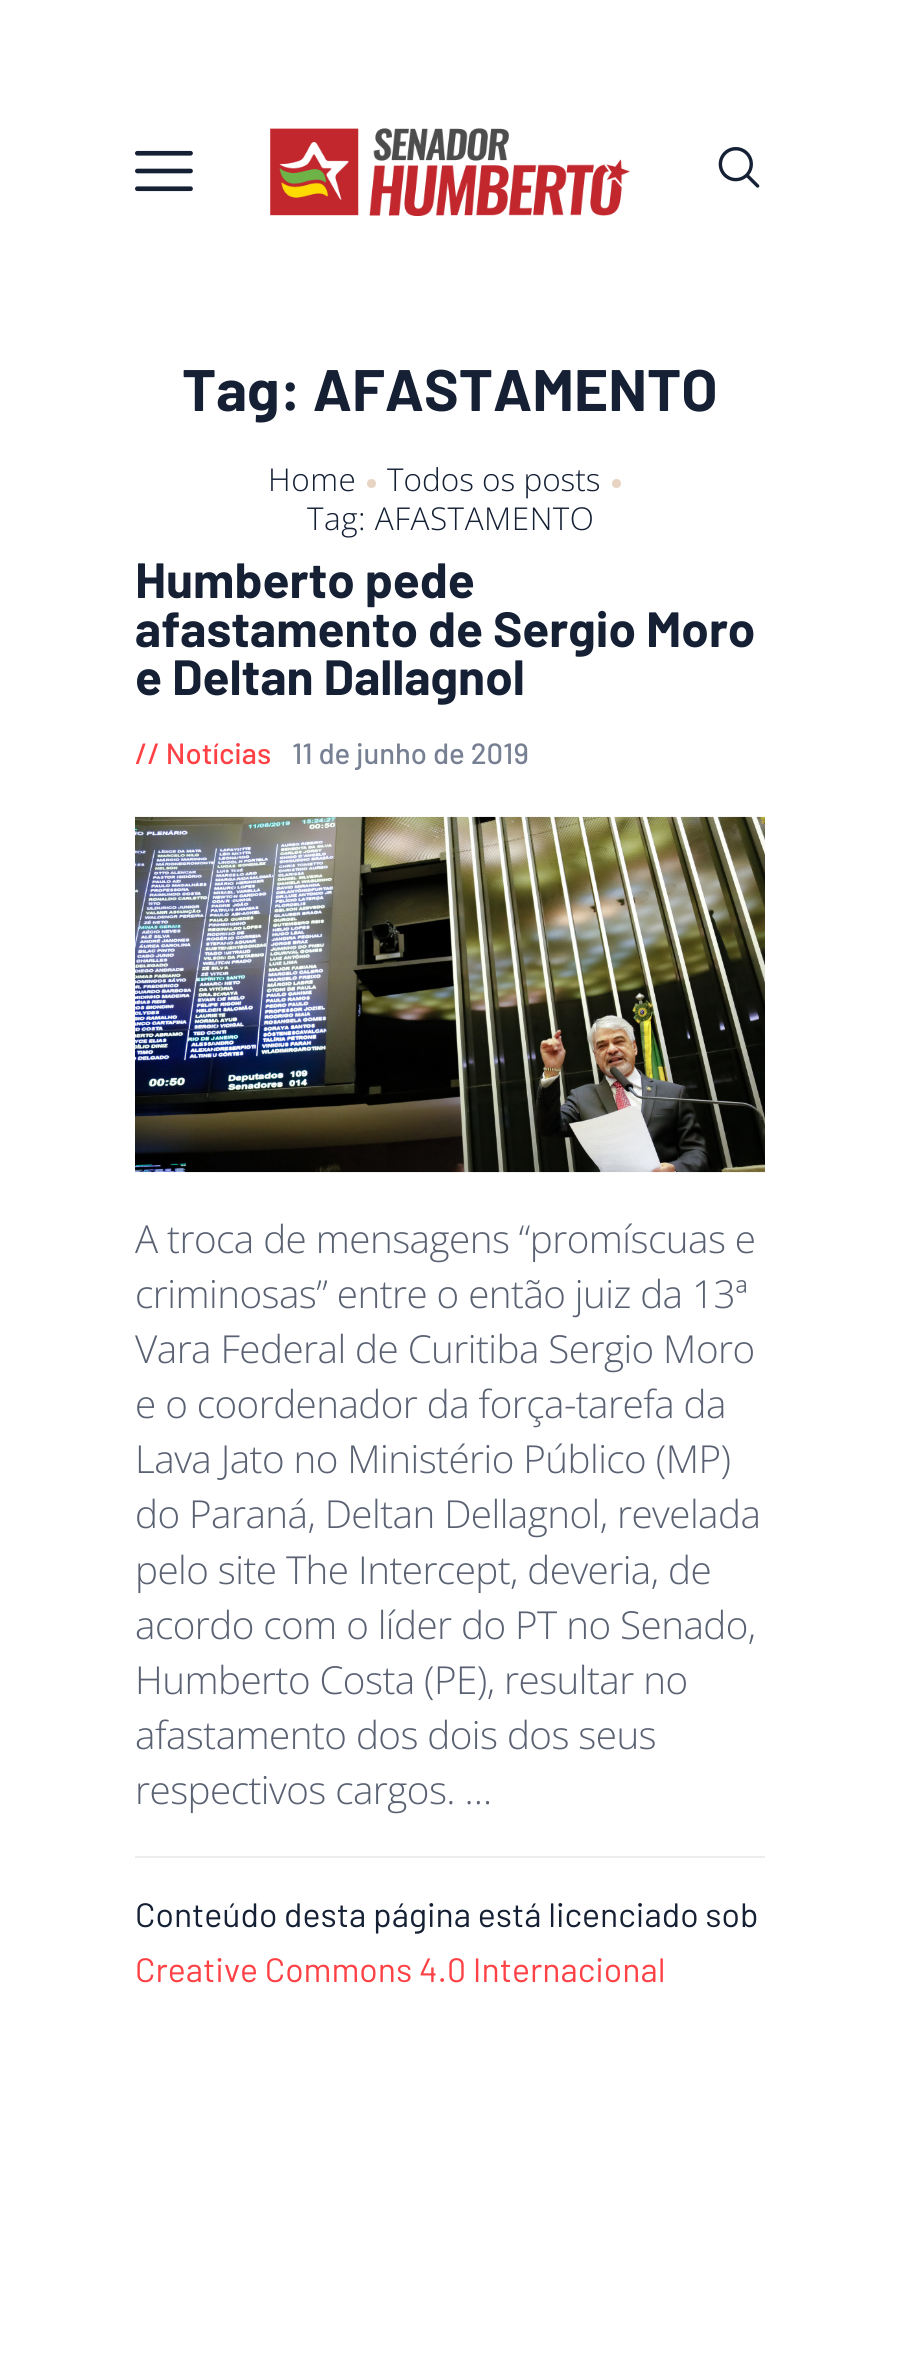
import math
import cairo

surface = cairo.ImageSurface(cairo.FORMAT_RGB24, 899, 2380)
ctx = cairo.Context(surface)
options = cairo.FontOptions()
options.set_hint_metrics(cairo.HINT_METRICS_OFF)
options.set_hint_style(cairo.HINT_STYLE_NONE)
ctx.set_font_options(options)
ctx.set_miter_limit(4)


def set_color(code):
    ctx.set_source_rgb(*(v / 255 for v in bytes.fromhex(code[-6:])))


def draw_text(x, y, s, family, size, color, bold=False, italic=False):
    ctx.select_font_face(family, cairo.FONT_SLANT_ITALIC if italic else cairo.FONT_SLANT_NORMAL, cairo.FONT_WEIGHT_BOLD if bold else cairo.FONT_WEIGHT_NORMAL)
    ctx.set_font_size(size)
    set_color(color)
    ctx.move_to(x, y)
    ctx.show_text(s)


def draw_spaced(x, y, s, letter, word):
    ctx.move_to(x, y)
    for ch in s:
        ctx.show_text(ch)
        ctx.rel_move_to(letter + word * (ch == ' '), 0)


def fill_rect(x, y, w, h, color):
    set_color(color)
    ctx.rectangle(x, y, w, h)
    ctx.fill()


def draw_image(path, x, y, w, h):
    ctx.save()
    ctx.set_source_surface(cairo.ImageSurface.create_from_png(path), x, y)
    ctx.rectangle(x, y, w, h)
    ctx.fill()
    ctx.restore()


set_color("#ffffff")
ctx.paint()
draw_image("assets/img1.png", 135, 150, 58, 42)
draw_image("assets/img2.png", 270, 128, 360, 88)
draw_image("assets/img3.png", 718, 147, 42, 41)
draw_text(182, 411, "Tag: AFASTAMENTO", "Barlow", 58.5, "#152035", bold=True)
ctx.select_font_face("Open Sans Light")
ctx.set_font_size(31.5)
draw_spaced(268, 491, "Home", 0.5, 0)
set_color("#e8d4c2")
ctx.new_path()
ctx.arc(371.5, 483.5, 4.5, 0, 2 * math.pi)
ctx.fill()
draw_text(387, 491, "Todos os posts", "Open Sans Light", 31.5, "#152035")
set_color("#e8d4c2")
ctx.new_path()
ctx.arc(616.5, 483.5, 4.5, 0, 2 * math.pi)
ctx.fill()
set_color("#152035")
draw_spaced(307, 530, "Tag: AFASTAMENTO", 0.5, 0)
draw_text(135, 598, "Humberto pede", "Barlow", 49.5, "#152035", bold=True)
draw_text(135, 647, "afastamento de Sergio Moro", "Barlow", 49.5, "#152035", bold=True)
draw_text(135, 695, "e Deltan Dallagnol", "Barlow", 49.5, "#152035", bold=True)
draw_text(135, 764, "// Notícias", "Barlow Medium", 29.25, "#fd4145")
draw_text(292, 764, "11 de junho de 2019", "Barlow Medium", 29.25, "#788193")
draw_image("assets/img4.png", 135, 816, 630, 357)
ctx.select_font_face("Open Sans Light")
ctx.set_font_size(38.6)
set_color("#596172")
draw_spaced(135, 1253, "A troca de mensagens “promíscuas e", -0.55, 0)
draw_spaced(135, 1308, "criminosas” entre o então juiz da 13ª", -0.55, 0)
draw_spaced(135, 1363, "Vara Federal de Curitiba Sergio Moro", -0.55, 0)
draw_spaced(135, 1418, "e o coordenador da força-tarefa da", -0.55, 0)
draw_spaced(135, 1473, "Lava Jato no Ministério Público (MP)", -0.55, 0)
draw_spaced(135, 1528, "do Paraná, Deltan Dellagnol, revelada", -0.55, 0)
draw_spaced(135, 1584, "pelo site The Intercept, deveria, de", -0.55, 0)
draw_spaced(135, 1639, "acordo com o líder do PT no Senado,", -0.55, 0)
draw_spaced(135, 1694, "Humberto Costa (PE), resultar no", -0.55, 0)
draw_spaced(135, 1749, "afastamento dos dois dos seus", -0.55, 0)
draw_spaced(135, 1804, "respectivos cargos. …", -0.55, 0)
fill_rect(135, 1856, 630, 2, "#ededed")
draw_text(135, 1927, "Conteúdo desta página está licenciado sob", "Barlow", 33.75, "#152035")
draw_text(135, 1982, "Creative Commons 4.0 Internacional", "Barlow", 33.75, "#fd4145")
surface.write_to_png("output.png")
